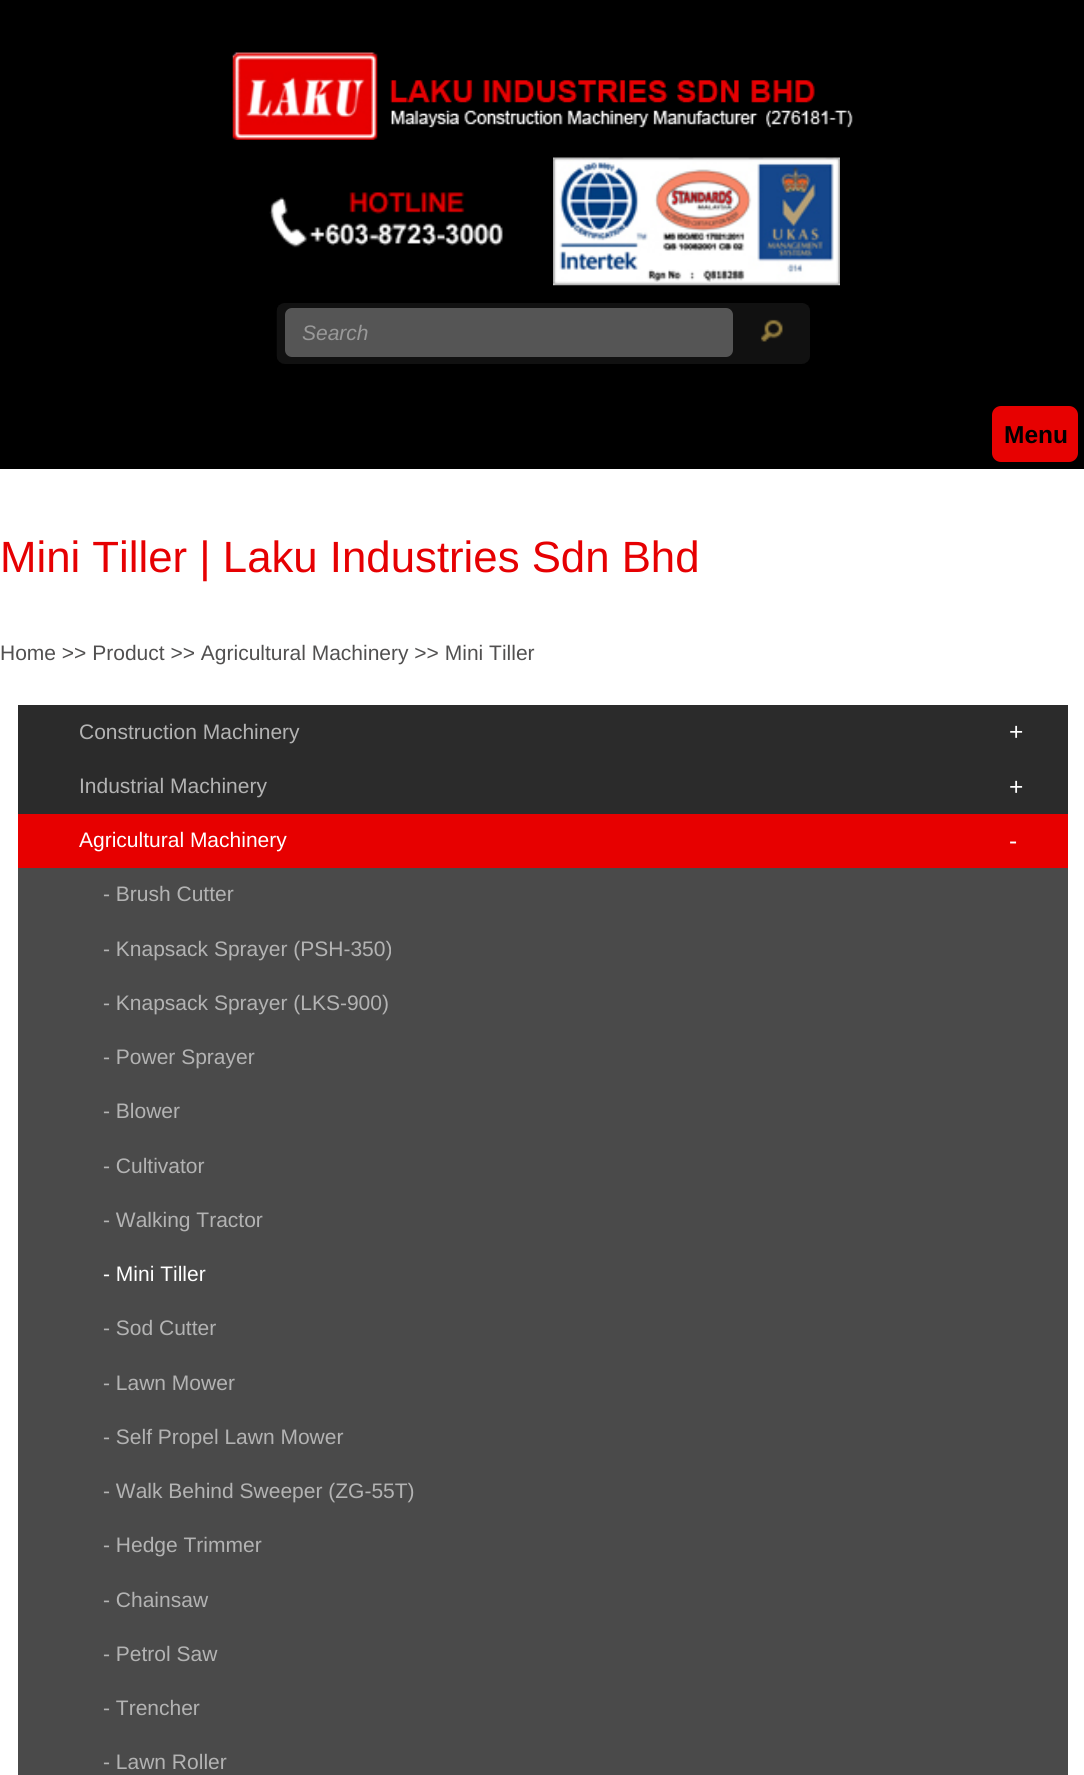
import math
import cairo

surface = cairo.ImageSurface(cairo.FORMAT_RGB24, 1084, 1775)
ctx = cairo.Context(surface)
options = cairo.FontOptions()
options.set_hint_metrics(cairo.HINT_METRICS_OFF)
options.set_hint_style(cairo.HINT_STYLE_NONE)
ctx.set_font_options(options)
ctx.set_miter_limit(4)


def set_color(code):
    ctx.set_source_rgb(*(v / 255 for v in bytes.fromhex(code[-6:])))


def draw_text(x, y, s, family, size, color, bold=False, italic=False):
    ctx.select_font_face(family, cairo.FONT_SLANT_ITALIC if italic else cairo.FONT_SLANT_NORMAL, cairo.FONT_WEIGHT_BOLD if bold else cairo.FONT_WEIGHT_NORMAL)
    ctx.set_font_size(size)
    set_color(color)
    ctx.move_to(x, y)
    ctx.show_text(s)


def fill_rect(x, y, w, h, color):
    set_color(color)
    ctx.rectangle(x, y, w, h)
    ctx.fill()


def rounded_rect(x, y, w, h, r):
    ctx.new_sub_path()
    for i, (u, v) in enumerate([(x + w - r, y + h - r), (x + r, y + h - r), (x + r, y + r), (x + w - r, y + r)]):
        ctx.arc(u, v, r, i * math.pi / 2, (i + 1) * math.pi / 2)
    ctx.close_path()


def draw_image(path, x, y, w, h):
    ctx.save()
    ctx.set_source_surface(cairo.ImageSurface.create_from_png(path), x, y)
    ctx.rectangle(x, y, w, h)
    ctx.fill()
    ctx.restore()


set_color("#ffffff")
ctx.paint()
fill_rect(0, 0, 1084, 469, "#000000")
draw_image("assets/img1.png", 232, 52, 621, 88)
draw_image("assets/img2.png", 269, 192, 234, 56)
draw_image("assets/img3.png", 553, 157, 287, 129)
draw_image("assets/img4.png", 276, 303, 534, 61)
set_color("#555555")
rounded_rect(285, 308, 448, 49, 7)
ctx.fill()
draw_text(302, 340, "Search", "Liberation Sans", 21, "#999999", italic=True)
draw_image("assets/img5.png", 760, 319, 23, 23)
set_color("#e70101")
rounded_rect(993, 407, 84, 54, 8)
ctx.fill_preserve()
ctx.stroke()
draw_text(1004, 443, "Menu", "Liberation Sans", 24.5, "#000000", bold=True)
draw_text(0, 572, "Mini Tiller | Laku Industries Sdn Bhd", "Liberation Sans", 43.75, "#e60002")
draw_text(0, 660, "Home >> Product >> Agricultural Machinery >> Mini Tiller", "Liberation Sans", 21, "#515050")
fill_rect(18, 705, 1050, 109, "#2b2b2b")
draw_text(79, 739, "Construction Machinery", "Liberation Sans", 21, "#b3b3b3")
draw_text(1009, 740, "+", "Liberation Sans", 24.5, "#ffffff")
draw_text(79, 793, "Industrial Machinery", "Liberation Sans", 21, "#b3b3b3")
draw_text(1009, 795, "+", "Liberation Sans", 24.5, "#ffffff")
fill_rect(18, 814, 1050, 54, "#e70000")
draw_text(79, 847, "Agricultural Machinery", "Liberation Sans", 21, "#ffffff")
draw_text(1009, 849, "-", "Liberation Sans", 24.5, "#ffffff")
fill_rect(18, 868, 1050, 907, "#4a4a4a")
draw_text(103, 901, "- Brush Cutter", "Liberation Sans", 21, "#b3b3b3")
draw_text(103, 956, "- Knapsack Sprayer (PSH-350)", "Liberation Sans", 21, "#b3b3b3")
draw_text(103, 1010, "- Knapsack Sprayer (LKS-900)", "Liberation Sans", 21, "#b3b3b3")
draw_text(103, 1064, "- Power Sprayer", "Liberation Sans", 21, "#b3b3b3")
draw_text(103, 1118, "- Blower", "Liberation Sans", 21, "#b3b3b3")
draw_text(103, 1173, "- Cultivator", "Liberation Sans", 21, "#b3b3b3")
draw_text(103, 1227, "- Walking Tractor", "Liberation Sans", 21, "#b3b3b3")
draw_text(103, 1281, "- Mini Tiller", "Liberation Sans", 21, "#ffffff")
draw_text(103, 1335, "- Sod Cutter", "Liberation Sans", 21, "#b3b3b3")
draw_text(103, 1390, "- Lawn Mower", "Liberation Sans", 21, "#b3b3b3")
draw_text(103, 1444, "- Self Propel Lawn Mower", "Liberation Sans", 21, "#b3b3b3")
draw_text(103, 1498, "- Walk Behind Sweeper (ZG-55T)", "Liberation Sans", 21, "#b3b3b3")
draw_text(103, 1552, "- Hedge Trimmer", "Liberation Sans", 21, "#b3b3b3")
draw_text(103, 1607, "- Chainsaw", "Liberation Sans", 21, "#b3b3b3")
draw_text(103, 1661, "- Petrol Saw", "Liberation Sans", 21, "#b3b3b3")
draw_text(103, 1715, "- Trencher", "Liberation Sans", 21, "#b3b3b3")
draw_text(103, 1769, "- Lawn Roller", "Liberation Sans", 21, "#b3b3b3")
surface.write_to_png("output.png")
